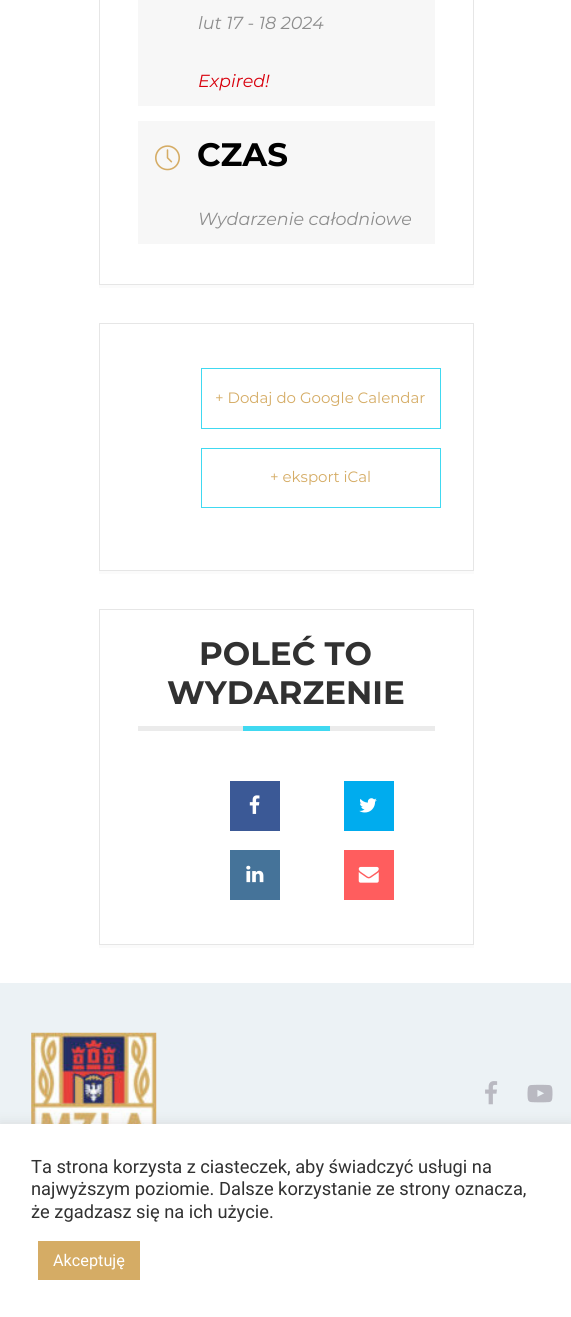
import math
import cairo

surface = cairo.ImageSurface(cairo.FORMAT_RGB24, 571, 1317)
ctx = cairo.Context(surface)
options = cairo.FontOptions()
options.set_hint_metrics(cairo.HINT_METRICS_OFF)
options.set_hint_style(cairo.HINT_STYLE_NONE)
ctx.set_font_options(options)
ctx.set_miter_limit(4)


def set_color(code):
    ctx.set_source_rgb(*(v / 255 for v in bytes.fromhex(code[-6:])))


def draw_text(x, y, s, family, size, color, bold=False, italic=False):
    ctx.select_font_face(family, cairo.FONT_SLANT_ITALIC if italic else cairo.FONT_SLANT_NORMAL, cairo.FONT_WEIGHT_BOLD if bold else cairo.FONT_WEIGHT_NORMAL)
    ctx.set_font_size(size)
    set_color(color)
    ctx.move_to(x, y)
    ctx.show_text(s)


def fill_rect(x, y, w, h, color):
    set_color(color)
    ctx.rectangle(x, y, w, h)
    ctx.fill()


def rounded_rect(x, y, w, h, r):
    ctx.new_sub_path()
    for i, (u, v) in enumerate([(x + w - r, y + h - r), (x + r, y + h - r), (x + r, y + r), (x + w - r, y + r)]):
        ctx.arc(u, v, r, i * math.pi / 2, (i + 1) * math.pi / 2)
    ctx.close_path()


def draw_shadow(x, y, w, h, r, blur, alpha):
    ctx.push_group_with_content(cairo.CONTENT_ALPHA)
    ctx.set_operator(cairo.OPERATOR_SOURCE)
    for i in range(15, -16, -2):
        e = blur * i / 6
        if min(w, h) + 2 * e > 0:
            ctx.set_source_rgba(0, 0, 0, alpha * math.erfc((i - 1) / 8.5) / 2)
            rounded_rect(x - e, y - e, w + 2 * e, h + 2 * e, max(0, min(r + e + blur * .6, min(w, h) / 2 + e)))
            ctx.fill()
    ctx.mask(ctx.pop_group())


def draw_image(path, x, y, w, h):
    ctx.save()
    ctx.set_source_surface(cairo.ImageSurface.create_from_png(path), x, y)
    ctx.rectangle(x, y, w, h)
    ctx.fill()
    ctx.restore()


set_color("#ffffff")
ctx.paint()
set_color("#fbfbfb")
ctx.new_path()
ctx.move_to(99, 285)
ctx.line_to(99, 288)
ctx.line_to(474, 288)
ctx.line_to(474, -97)
ctx.line_to(474, 285)
ctx.close_path()
ctx.fill()
ctx.rectangle(99.5, -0.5, 374, 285)
set_color("#e6e6e6")
ctx.set_line_width(1)
ctx.stroke()
fill_rect(138, 0, 297, 106, "#f7f7f7")
draw_text(198, 29, "lut 17 - 18 2024", "Montserrat", 17.5, "#8d8d8d", italic=True)
draw_text(198, 87, "Expired!", "Montserrat", 17.5, "#d8000c", italic=True)
fill_rect(138, 121, 297, 123, "#f7f7f7")
draw_image("assets/img1.png", 155, 145, 25, 26)
draw_text(197, 166, "CZAS", "Montserrat", 32.5, "#000000", bold=True)
draw_text(198, 225, "Wydarzenie całodniowe", "Montserrat", 17.5, "#8d8d8d", italic=True)
set_color("#fbfbfb")
ctx.new_path()
ctx.move_to(99, 571)
ctx.line_to(99, 574)
ctx.line_to(474, 574)
ctx.line_to(474, 325)
ctx.line_to(474, 571)
ctx.close_path()
ctx.fill()
ctx.rectangle(99.5, 323.5, 374, 247)
set_color("#e6e6e6")
ctx.stroke()
ctx.rectangle(201.5, 368.5, 239, 60)
set_color("#40d9f1")
ctx.stroke()
draw_text(215, 403, "+ Dodaj do Google Calendar", "Montserrat", 15, "#d5ac65")
ctx.rectangle(201.5, 448.5, 239, 59)
set_color("#40d9f1")
ctx.stroke()
draw_text(270, 482, "+ eksport iCal", "Montserrat", 15, "#d5ac65")
set_color("#fbfbfb")
ctx.new_path()
ctx.move_to(99, 945)
ctx.line_to(99, 948)
ctx.line_to(474, 948)
ctx.line_to(474, 611)
ctx.line_to(474, 945)
ctx.close_path()
ctx.fill()
ctx.rectangle(99.5, 609.5, 374, 335)
set_color("#e6e6e6")
ctx.stroke()
fill_rect(138, 726, 297, 5, "#ebebeb")
draw_text(199, 665, "POLEĆ TO", "Montserrat", 32.5, "#313131", bold=True)
draw_text(167, 704, "WYDARZENIE", "Montserrat", 32.5, "#313131", bold=True)
fill_rect(243, 726, 87, 5, "#40d9f1")
fill_rect(230, 781, 50, 50, "#3b5996")
draw_image("assets/img2.png", 249, 795, 11, 19)
fill_rect(344, 781, 50, 50, "#00acee")
draw_image("assets/img3.png", 359, 798, 18, 15)
fill_rect(230, 850, 50, 50, "#457399")
draw_image("assets/img4.png", 246, 865, 18, 18)
fill_rect(344, 850, 50, 50, "#ff5d5e")
draw_image("assets/img5.png", 358, 866, 21, 17)
fill_rect(0, 983, 571, 141, "#ecf2f5")
draw_image("assets/img6.png", 31, 1032, 126, 92)
draw_image("assets/img7.png", 485, 1081, 13, 24)
draw_image("assets/img8.png", 527, 1084, 26, 19)
set_color("#acabab")
draw_shadow(0, 1123, 571, 193, 0, 6, 0.3)
fill_rect(0, 1124, 571, 193, "#ffffff")
draw_text(31, 1173, "Ta strona korzysta z ciasteczek, aby świadczyć usługi na", "Roboto", 18.3, "#313131")
draw_text(31, 1195, "najwyższym poziomie. Dalsze korzystanie ze strony oznacza,", "Roboto", 18.3, "#313131")
draw_text(31, 1218, "że zgadzasz się na ich użycie.", "Roboto", 18.3, "#313131")
fill_rect(38, 1241, 102, 39, "#d5ac65")
draw_text(53, 1266, "Akceptuję", "Roboto", 16.25, "#ffffff")
surface.write_to_png("output.png")
